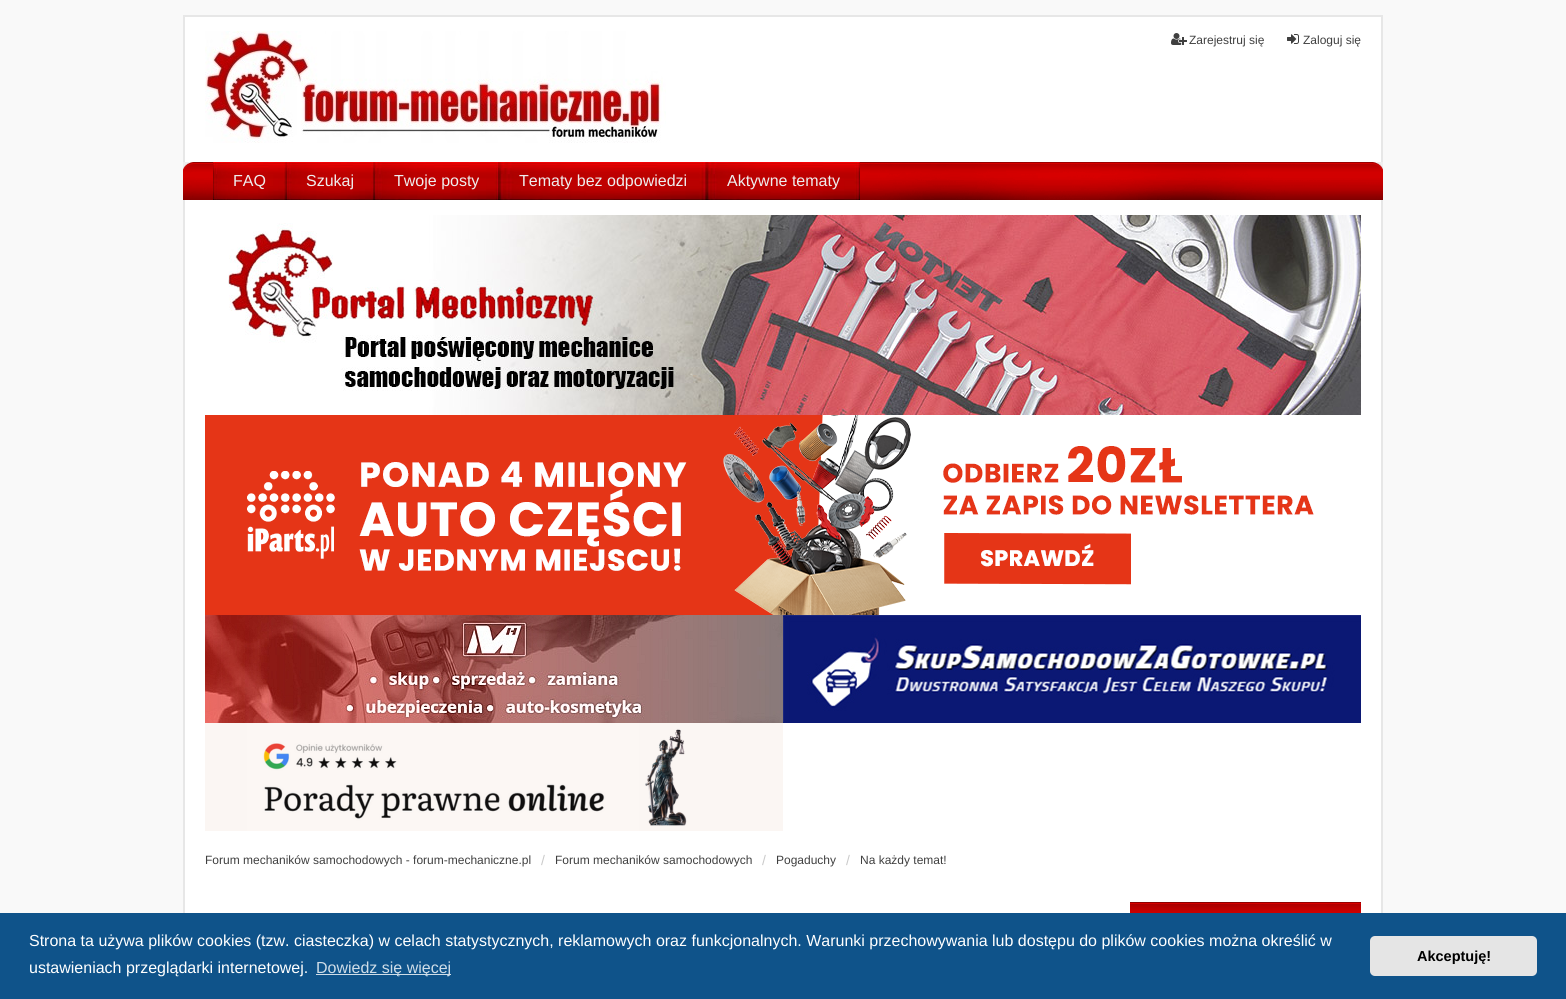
import math
import cairo

surface = cairo.ImageSurface(cairo.FORMAT_RGB24, 1566, 999)
ctx = cairo.Context(surface)
options = cairo.FontOptions()
options.set_hint_metrics(cairo.HINT_METRICS_OFF)
options.set_hint_style(cairo.HINT_STYLE_NONE)
ctx.set_font_options(options)
ctx.set_miter_limit(4)


def set_color(code):
    ctx.set_source_rgb(*(v / 255 for v in bytes.fromhex(code[-6:])))


def draw_text(x, y, s, family, size, color, bold=False, italic=False):
    ctx.select_font_face(family, cairo.FONT_SLANT_ITALIC if italic else cairo.FONT_SLANT_NORMAL, cairo.FONT_WEIGHT_BOLD if bold else cairo.FONT_WEIGHT_NORMAL)
    ctx.set_font_size(size)
    set_color(color)
    ctx.move_to(x, y)
    ctx.show_text(s)


def fill_rect(x, y, w, h, color):
    set_color(color)
    ctx.rectangle(x, y, w, h)
    ctx.fill()


def rounded_rect(x, y, w, h, r):
    ctx.new_sub_path()
    for i, (u, v) in enumerate([(x + w - r, y + h - r), (x + r, y + h - r), (x + r, y + r), (x + w - r, y + r)]):
        ctx.arc(u, v, r, i * math.pi / 2, (i + 1) * math.pi / 2)
    ctx.close_path()


def draw_image(path, x, y, w, h):
    ctx.save()
    ctx.set_source_surface(cairo.ImageSurface.create_from_png(path), x, y)
    ctx.rectangle(x, y, w, h)
    ctx.fill()
    ctx.restore()


set_color("#f9f9f9")
ctx.paint()
fill_rect(185, 17, 1196, 145, "#ffffff")
fill_rect(183, 15, 1200, 2, "#e7e7e7")
fill_rect(1381, 15, 2, 147, "#e7e7e7")
fill_rect(183, 15, 2, 147, "#e7e7e7")
draw_image("assets/img1.png", 205, 31, 461, 112)
draw_image("assets/img2.png", 1171, 33, 16, 12)
draw_text(1189, 44, "Zarejestruj się", "Liberation Sans", 12, "#3f3f3f")
draw_image("assets/img3.png", 1287, 34, 12, 10)
draw_text(1303, 44, "Zaloguj się", "Liberation Sans", 12, "#3f3f3f")
draw_image("assets/img4.png", 183, 162, 1200, 38)
draw_image("assets/img5.png", 213, 162, 73, 38)
draw_text(233, 186, "FAQ", "Liberation Sans", 16, "#eeeeee")
draw_image("assets/img6.png", 286, 162, 88, 38)
draw_text(306, 186, "Szukaj", "Liberation Sans", 16, "#eeeeee")
draw_image("assets/img7.png", 374, 162, 125, 38)
draw_text(394, 186, "Twoje posty", "Liberation Sans", 16, "#eeeeee")
draw_image("assets/img8.png", 499, 162, 208, 38)
draw_text(519, 186, "Tematy bez odpowiedzi", "Liberation Sans", 16, "#eeeeee")
draw_image("assets/img9.png", 707, 162, 153, 38)
draw_text(727, 186, "Aktywne tematy", "Liberation Sans", 16, "#eeeeee")
fill_rect(185, 200, 1196, 713, "#ffffff")
fill_rect(1381, 200, 2, 713, "#e7e7e7")
fill_rect(183, 200, 2, 713, "#e7e7e7")
draw_image("assets/img10.png", 228, 215, 1133, 200)
draw_image("assets/img11.png", 205, 415, 1109, 200)
draw_image("assets/img12.png", 205, 615, 578, 108)
draw_image("assets/img13.png", 783, 615, 578, 108)
draw_image("assets/img14.png", 205, 723, 578, 108)
draw_text(205, 864, "Forum mechaników samochodowych - forum-mechaniczne.pl", "Liberation Sans", 12, "#3f3f3f")
draw_text(541, 865, "/", "Liberation Sans", 14, "#cacaca")
draw_text(555, 864, "Forum mechaników samochodowych", "Liberation Sans", 12, "#3f3f3f")
draw_text(762, 865, "/", "Liberation Sans", 14, "#cacaca")
draw_text(776, 864, "Pogaduchy", "Liberation Sans", 12, "#3f3f3f")
draw_text(846, 865, "/", "Liberation Sans", 14, "#cacaca")
draw_text(860, 864, "Na każdy temat!", "Liberation Sans", 12, "#3f3f3f")
draw_image("assets/img15.png", 1130, 902, 231, 11)
fill_rect(0, 913, 1566, 86, "#0f538a")
draw_text(29, 946, "Strona ta używa plików cookies (tzw. ciasteczka) w celach statystycznych, reklamowych oraz funkcjonalnych. Warunki przechowywania lub dostępu do plików cookies można określić w", "Liberation Sans", 16, "#ffffff")
draw_text(29, 973, "ustawieniach przeglądarki internetowej.", "Liberation Sans", 16, "#ffffff")
fill_rect(316, 974, 135, 1, "#cfdde8")
draw_text(316, 973, "Dowiedz się więcej", "Liberation Sans", 16, "#cfdde8")
set_color("#e5e5e5")
rounded_rect(1370, 936, 167, 40, 5)
ctx.fill()
draw_text(1417, 961, "Akceptuję!", "Liberation Sans", 14.5, "#000000", bold=True)
surface.write_to_png("output.png")
